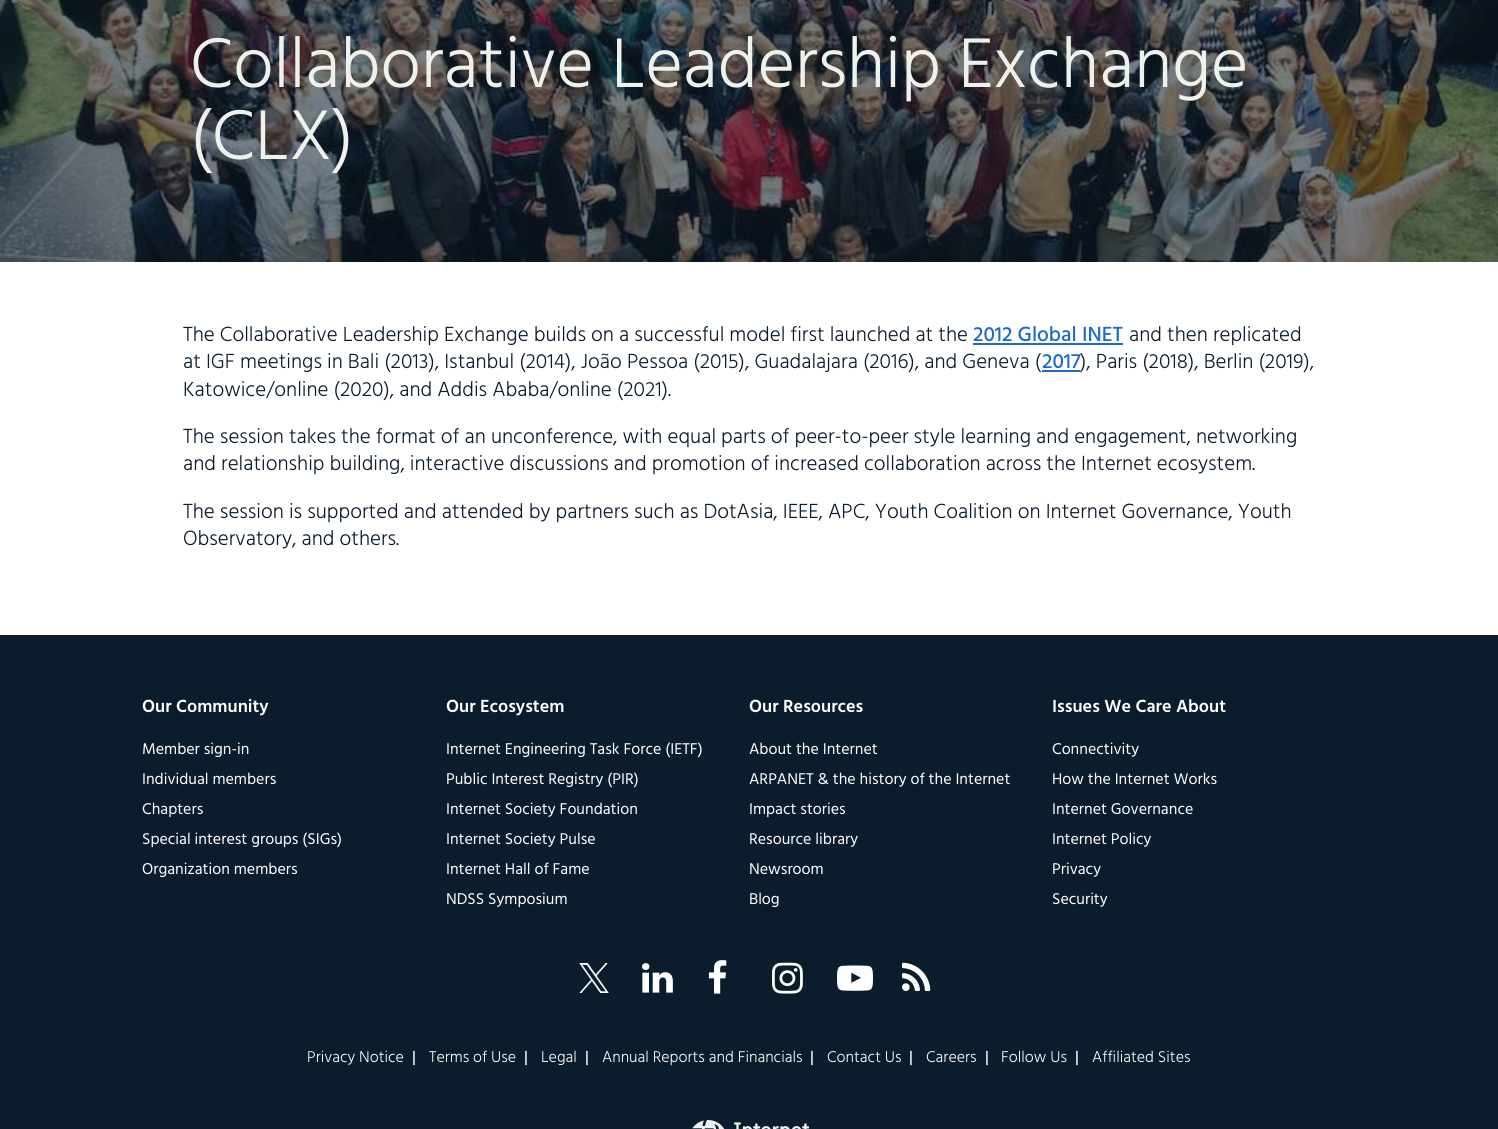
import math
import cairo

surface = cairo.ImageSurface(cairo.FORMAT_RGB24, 1498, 1129)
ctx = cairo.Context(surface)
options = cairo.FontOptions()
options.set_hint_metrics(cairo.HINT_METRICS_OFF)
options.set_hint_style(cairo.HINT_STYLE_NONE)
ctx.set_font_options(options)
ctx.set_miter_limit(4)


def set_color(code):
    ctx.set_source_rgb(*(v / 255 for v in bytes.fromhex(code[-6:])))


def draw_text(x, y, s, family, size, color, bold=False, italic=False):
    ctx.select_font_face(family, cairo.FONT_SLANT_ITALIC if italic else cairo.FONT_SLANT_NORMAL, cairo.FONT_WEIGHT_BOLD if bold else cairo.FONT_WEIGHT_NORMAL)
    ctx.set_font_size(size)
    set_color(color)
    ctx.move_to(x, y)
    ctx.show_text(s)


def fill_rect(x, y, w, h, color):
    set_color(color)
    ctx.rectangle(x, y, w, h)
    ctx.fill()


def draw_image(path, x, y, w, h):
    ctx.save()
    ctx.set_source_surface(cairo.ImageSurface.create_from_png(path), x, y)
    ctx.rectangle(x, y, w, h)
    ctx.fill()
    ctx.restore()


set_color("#0b1c2d")
ctx.paint()
fill_rect(0, 262, 1498, 373, "#ffffff")
draw_image("assets/img1.png", 0, 0, 1498, 262)
draw_text(190, 87, "Collaborative Leadership Exchange", "Hind Light", 72, "#eff2ec")
draw_text(190, 159, "(CLX)", "Hind Light", 72, "#eff2ec")
draw_text(183, 341, "The Collaborative Leadership Exchange builds on a successful model first launched at the", "Hind Light", 21, "#0c1c2c")
draw_text(973, 341, "2012 Global INET", "Hind Medium", 21, "#1d69d3")
fill_rect(973, 343, 150, 2, "#1d69d3")
draw_text(1129, 341, "and then replicated", "Hind Light", 21, "#0c1c2c")
draw_text(183, 368, "at IGF meetings in Bali (2013), Istanbul (2014), João Pessoa (2015), Guadalajara (2016), and Geneva (", "Hind Light", 21, "#0c1c2c")
draw_text(1042, 368, "2017", "Hind Medium", 21, "#1d69d3")
fill_rect(1042, 370, 38, 2, "#1d69d3")
draw_text(1080, 368, "), Paris (2018), Berlin (2019),", "Hind Light", 21, "#0c1c2c")
draw_text(183, 396, "Katowice/online (2020), and Addis Ababa/online (2021).", "Hind Light", 21, "#0c1c2c")
draw_text(183, 443, "The session takes the format of an unconference, with equal parts of peer-to-peer style learning and engagement, networking", "Hind Light", 21, "#0c1c2c")
draw_text(183, 470, "and relationship building, interactive discussions and promotion of increased collaboration across the Internet ecosystem.", "Hind Light", 21, "#0c1c2c")
draw_text(183, 518, "The session is supported and attended by partners such as DotAsia, IEEE, APC, Youth Coalition on Internet Governance, Youth", "Hind Light", 21, "#0c1c2c")
draw_text(183, 545, "Observatory, and others.", "Hind Light", 21, "#0c1c2c")
draw_text(142, 712, "Our Community", "Hind SemiBold", 18, "#ffffff")
draw_text(142, 754, "Member sign-in", "Hind", 16, "#ffffff")
draw_text(142, 784, "Individual members", "Hind", 16, "#ffffff")
draw_text(142, 814, "Chapters", "Hind", 16, "#ffffff")
draw_text(142, 844, "Special interest groups (SIGs)", "Hind", 16, "#ffffff")
draw_text(142, 874, "Organization members", "Hind", 16, "#ffffff")
draw_text(446, 712, "Our Ecosystem", "Hind SemiBold", 18, "#ffffff")
draw_text(446, 754, "Internet Engineering Task Force (IETF)", "Hind", 16, "#ffffff")
draw_text(446, 784, "Public Interest Registry (PIR)", "Hind", 16, "#ffffff")
draw_text(446, 814, "Internet Society Foundation", "Hind", 16, "#ffffff")
draw_text(446, 844, "Internet Society Pulse", "Hind", 16, "#ffffff")
draw_text(446, 874, "Internet Hall of Fame", "Hind", 16, "#ffffff")
draw_text(446, 904, "NDSS Symposium", "Hind", 16, "#ffffff")
draw_text(749, 712, "Our Resources", "Hind SemiBold", 18, "#ffffff")
draw_text(749, 754, "About the Internet", "Hind", 16, "#ffffff")
draw_text(749, 784, "ARPANET & the history of the Internet", "Hind", 16, "#ffffff")
draw_text(749, 814, "Impact stories", "Hind", 16, "#ffffff")
draw_text(749, 844, "Resource library", "Hind", 16, "#ffffff")
draw_text(749, 874, "Newsroom", "Hind", 16, "#ffffff")
draw_text(749, 904, "Blog", "Hind", 16, "#ffffff")
draw_text(1052, 712, "Issues We Care About", "Hind SemiBold", 18, "#ffffff")
draw_text(1052, 754, "Connectivity", "Hind", 16, "#ffffff")
draw_text(1052, 784, "How the Internet Works", "Hind", 16, "#ffffff")
draw_text(1052, 814, "Internet Governance", "Hind", 16, "#ffffff")
draw_text(1052, 844, "Internet Policy", "Hind", 16, "#ffffff")
draw_text(1052, 874, "Privacy", "Hind", 16, "#ffffff")
draw_text(1052, 904, "Security", "Hind", 16, "#ffffff")
draw_image("assets/img2.png", 579, 963, 30, 30)
draw_image("assets/img3.png", 642, 963, 31, 30)
draw_image("assets/img4.png", 708, 960, 19, 34)
draw_image("assets/img5.png", 772, 962, 31, 32)
draw_image("assets/img6.png", 837, 965, 36, 26)
draw_image("assets/img7.png", 902, 962, 29, 29)
draw_text(307, 1062, "Privacy Notice", "Hind Light", 16, "#ffffff")
draw_text(412, 1062, "|", "Hind Medium", 16, "#ffffff")
draw_text(429, 1062, "Terms of Use", "Hind Light", 16, "#ffffff")
draw_text(524, 1062, "|", "Hind Medium", 16, "#ffffff")
draw_text(541, 1062, "Legal", "Hind Light", 16, "#ffffff")
draw_text(585, 1062, "|", "Hind Medium", 16, "#ffffff")
draw_text(602, 1062, "Annual Reports and Financials", "Hind Light", 16, "#ffffff")
draw_text(810, 1062, "|", "Hind Medium", 16, "#ffffff")
draw_text(827, 1062, "Contact Us", "Hind Light", 16, "#ffffff")
draw_text(909, 1062, "|", "Hind Medium", 16, "#ffffff")
draw_text(926, 1062, "Careers", "Hind Light", 16, "#ffffff")
draw_text(985, 1062, "|", "Hind Medium", 16, "#ffffff")
draw_text(1001, 1062, "Follow Us", "Hind Light", 16, "#ffffff")
draw_text(1075, 1062, "|", "Hind Medium", 16, "#ffffff")
draw_text(1092, 1062, "Affiliated Sites", "Hind Light", 16, "#ffffff")
draw_image("assets/img8.png", 692, 1120, 117, 9)
surface.write_to_png("output.png")
